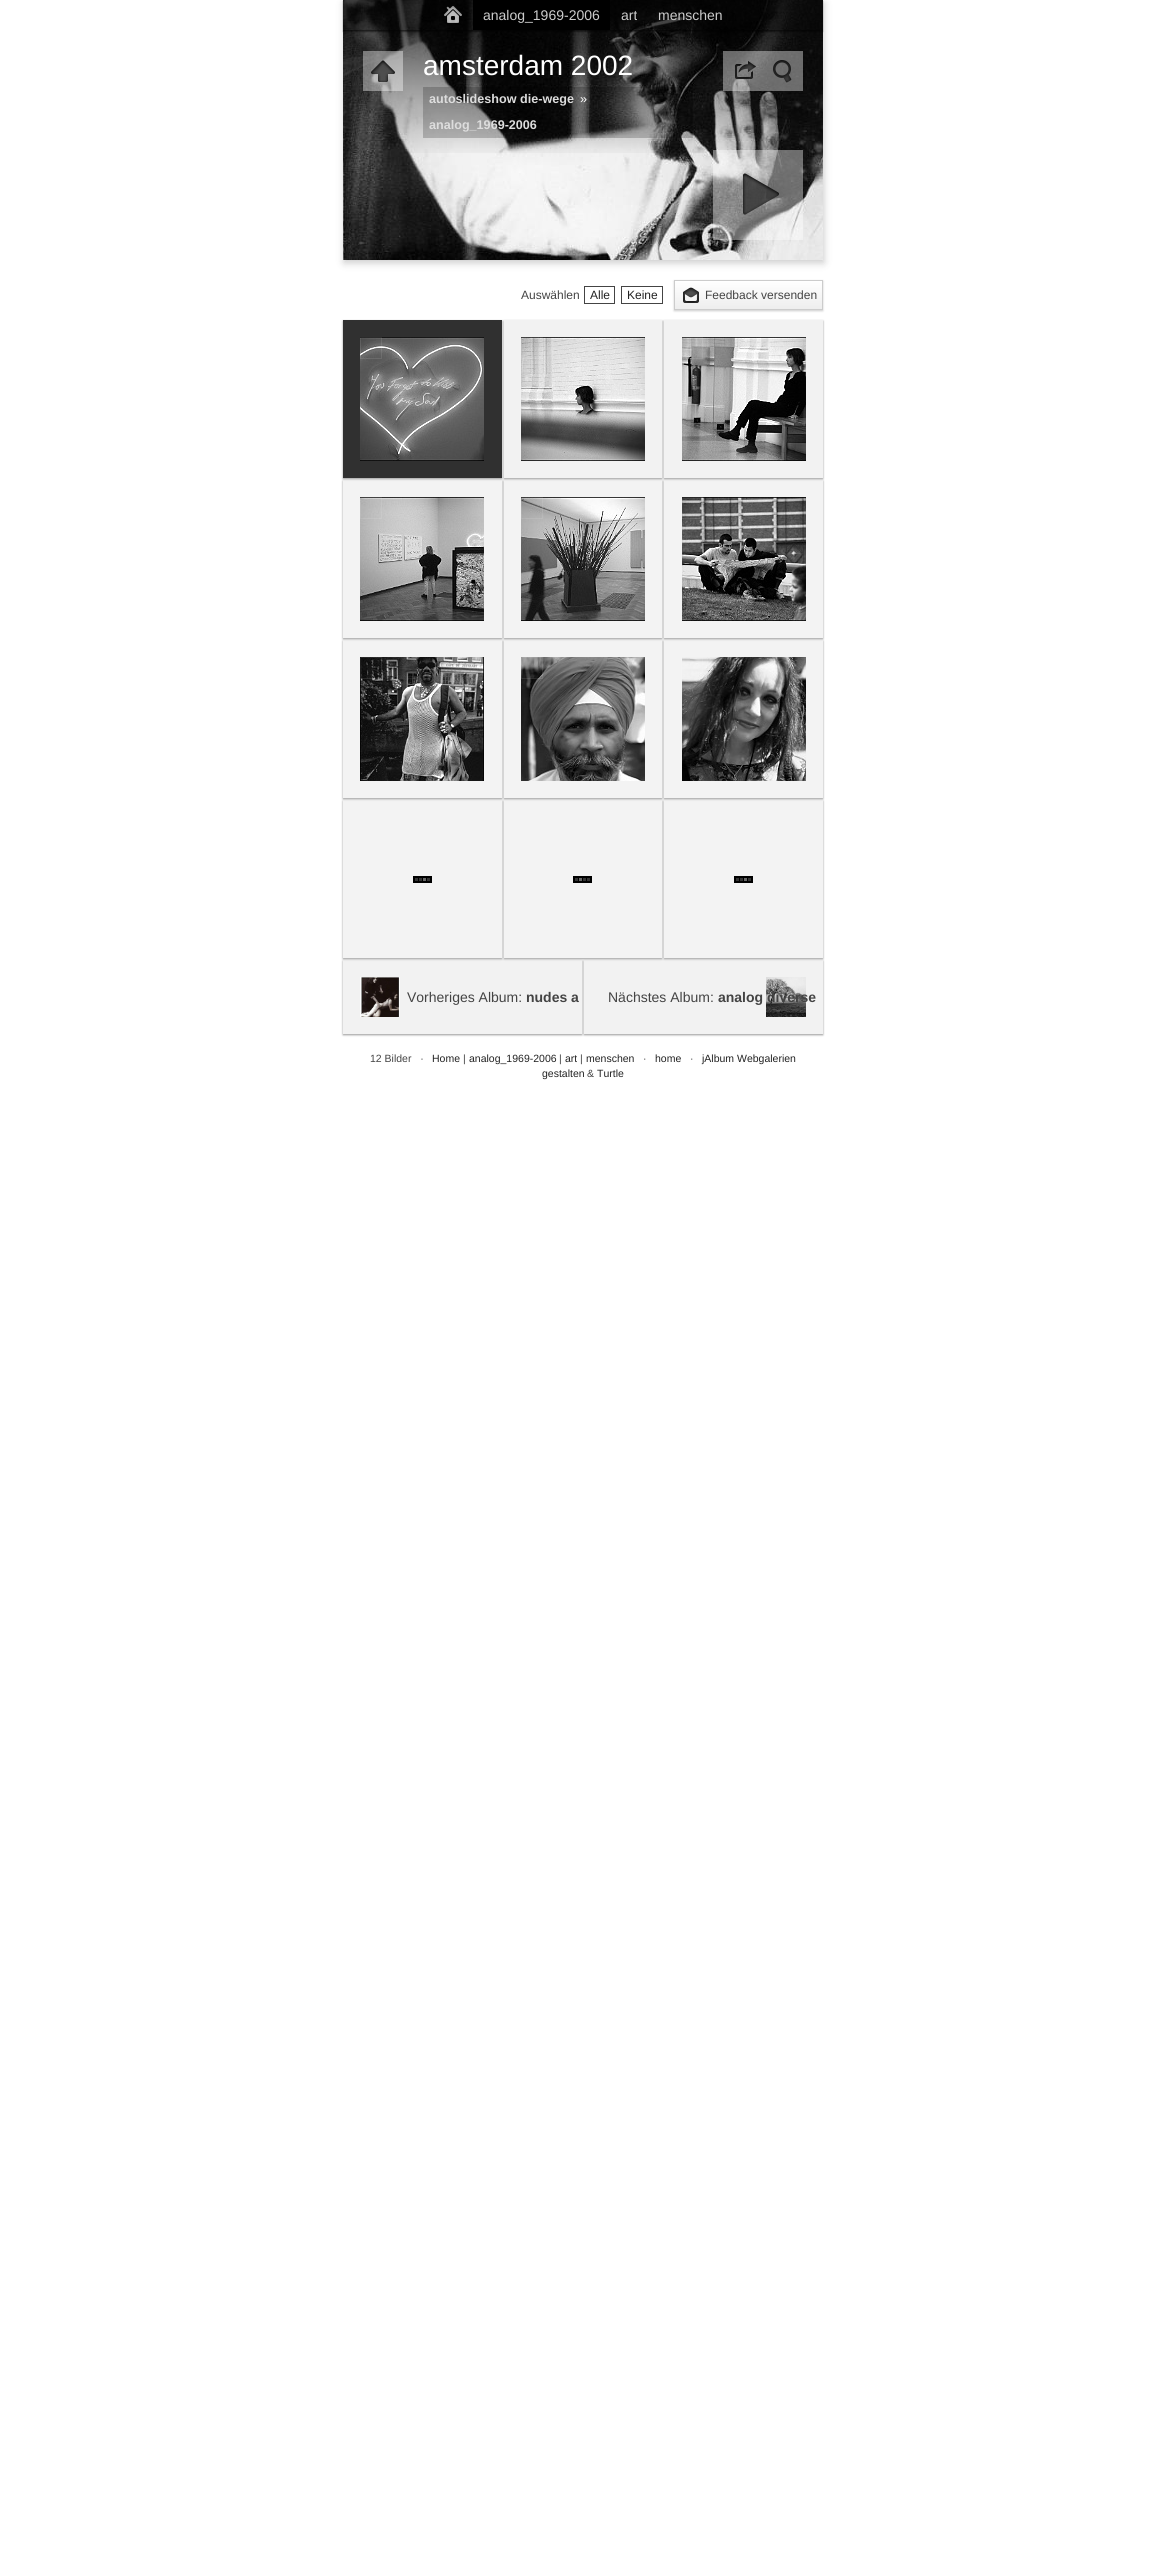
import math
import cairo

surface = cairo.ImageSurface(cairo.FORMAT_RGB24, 1166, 2575)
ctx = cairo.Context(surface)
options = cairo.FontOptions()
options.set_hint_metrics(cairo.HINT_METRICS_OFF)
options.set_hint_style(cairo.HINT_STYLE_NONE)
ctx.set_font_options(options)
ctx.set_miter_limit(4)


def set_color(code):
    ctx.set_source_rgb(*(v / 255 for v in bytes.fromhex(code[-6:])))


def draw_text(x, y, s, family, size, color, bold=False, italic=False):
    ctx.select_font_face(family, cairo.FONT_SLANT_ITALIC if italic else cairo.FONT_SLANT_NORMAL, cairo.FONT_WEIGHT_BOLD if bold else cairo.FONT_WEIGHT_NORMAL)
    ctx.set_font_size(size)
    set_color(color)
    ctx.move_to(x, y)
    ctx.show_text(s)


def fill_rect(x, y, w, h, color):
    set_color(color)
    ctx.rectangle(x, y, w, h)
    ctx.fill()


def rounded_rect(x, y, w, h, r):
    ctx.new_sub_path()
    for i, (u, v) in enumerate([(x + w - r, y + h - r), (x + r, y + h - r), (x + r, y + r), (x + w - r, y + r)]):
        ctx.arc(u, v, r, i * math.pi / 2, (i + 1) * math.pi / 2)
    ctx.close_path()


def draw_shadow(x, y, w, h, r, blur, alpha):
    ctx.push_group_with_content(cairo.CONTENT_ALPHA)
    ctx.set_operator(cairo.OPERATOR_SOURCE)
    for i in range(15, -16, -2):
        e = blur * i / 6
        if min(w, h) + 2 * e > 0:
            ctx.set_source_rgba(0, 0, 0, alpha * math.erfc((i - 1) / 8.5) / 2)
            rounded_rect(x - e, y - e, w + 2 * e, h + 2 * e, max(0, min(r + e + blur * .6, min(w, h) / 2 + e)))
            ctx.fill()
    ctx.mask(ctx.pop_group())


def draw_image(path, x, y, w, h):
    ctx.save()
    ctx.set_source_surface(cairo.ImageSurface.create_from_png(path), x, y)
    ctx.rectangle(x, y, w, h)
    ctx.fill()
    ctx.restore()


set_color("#ffffff")
ctx.paint()
set_color("#000000")
draw_shadow(344, 3, 480, 260, 0, 4, 0.2)
draw_image("assets/img1.png", 343, 0, 480, 260)
ctx.save()
ctx.set_fill_rule(cairo.FILL_RULE_EVEN_ODD)
ctx.new_path()
ctx.move_to(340, 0)
ctx.line_to(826, 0)
ctx.line_to(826, 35)
ctx.line_to(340, 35)
ctx.close_path()
ctx.move_to(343, 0)
ctx.line_to(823, 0)
ctx.line_to(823, 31)
ctx.line_to(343, 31)
ctx.close_path()
ctx.clip()
draw_shadow(343, 1, 480, 31, 0, 0.5, 0.4)
ctx.restore()
ctx.set_source_rgba(0, 0, 0, 0.7)
ctx.rectangle(343, 0, 480, 31)
ctx.fill()
ctx.set_source_rgba(0, 0, 0, 0.4)
ctx.rectangle(343, 30, 480, 1)
ctx.fill()
draw_image("assets/img2.png", 444, 6, 18, 17)
fill_rect(473, 0, 137, 30, "#000000")
draw_text(483, 20, "analog_1969-2006", "Liberation Sans", 14, "#cccccc")
draw_text(621, 20, "art", "Liberation Sans", 14, "#cccccc")
draw_text(658, 20, "menschen", "Liberation Sans", 14, "#cccccc")
gradient = cairo.LinearGradient(583, 31, 583, 158)
gradient.add_color_stop_rgba(0, 0, 0, 0, 0.6)
gradient.add_color_stop_rgba(1, 0, 0, 0, 0)
ctx.set_source(gradient)
ctx.rectangle(343, 31, 480, 122)
ctx.fill()
ctx.set_source_rgba(1, 1, 1, 0.4)
ctx.rectangle(363, 51, 40, 40)
ctx.fill()
draw_image("assets/img3.png", 371, 60, 24, 22)
draw_text(423, 75, "amsterdam 2002", "Liberation Sans", 28, "#ffffff")
ctx.set_source_rgba(0, 0, 0, 0.2)
ctx.rectangle(423, 87, 270, 51)
ctx.fill()
draw_text(429, 103, "autoslideshow die-wege", "Liberation Sans", 12.6, "#dddddd", bold=True)
draw_text(580, 103, "»", "Liberation Sans", 12.6, "#ffffff")
draw_text(429, 129, "analog_1969-2006", "Liberation Sans", 12.6, "#dddddd", bold=True)
ctx.set_source_rgba(1, 1, 1, 0.4)
ctx.rectangle(723, 51, 40, 40)
ctx.fill()
draw_image("assets/img4.png", 735, 61, 21, 18)
ctx.rectangle(763, 51, 40, 40)
ctx.fill()
draw_image("assets/img5.png", 773, 60, 19, 23)
ctx.rectangle(713, 150, 90, 90)
ctx.fill()
draw_image("assets/img6.png", 743, 173, 36, 42)
draw_text(521, 299, "Auswählen", "Liberation Sans", 12, "#444444")
ctx.rectangle(584.5, 286.5, 30, 17)
ctx.set_line_width(1)
ctx.stroke()
draw_text(590, 299, "Alle", "Liberation Sans", 12, "#222222")
ctx.rectangle(621.5, 286.5, 41, 17)
set_color("#444444")
ctx.stroke()
draw_text(627, 299, "Keine", "Liberation Sans", 12, "#222222")
set_color("#000000")
draw_shadow(674, 281, 149, 30, 0, 1, 0.2)
gradient = cairo.LinearGradient(749, 281, 749, 309)
gradient.add_color_stop_rgba(0, 1, 1, 1, 1)
gradient.add_color_stop_rgba(1, 0.933, 0.933, 0.933, 1)
ctx.set_source(gradient)
ctx.rectangle(675, 281, 147, 28)
ctx.fill()
ctx.rectangle(674.5, 280.5, 148, 29)
set_color("#cccccc")
ctx.stroke()
draw_image("assets/img7.png", 683, 287, 16, 16)
draw_text(705, 299, "Feedback versenden", "Liberation Sans", 12, "#444444")
set_color("#000000")
draw_shadow(343, 321, 159, 158, 0, 1, 0.4)
fill_rect(343, 320, 159, 158, "#303030")
draw_image("assets/img8.png", 360, 337, 124, 124)
ctx.rectangle(360.5, 337.5, 21, 21)
ctx.set_source_rgba(1, 1, 1, 0.1)
ctx.stroke()
set_color("#000000")
draw_shadow(504, 321, 158, 158, 0, 1, 0.4)
fill_rect(504, 320, 158, 158, "#f2f2f2")
draw_image("assets/img9.png", 521, 337, 124, 124)
ctx.rectangle(521.5, 337.5, 21, 21)
ctx.set_source_rgba(1, 1, 1, 0.1)
ctx.stroke()
set_color("#000000")
draw_shadow(664, 321, 159, 158, 0, 1, 0.4)
fill_rect(664, 320, 159, 158, "#f2f2f2")
draw_image("assets/img10.png", 682, 337, 124, 124)
ctx.rectangle(681.5, 337.5, 21, 21)
ctx.set_source_rgba(1, 1, 1, 0.1)
ctx.stroke()
ctx.save()
ctx.set_fill_rule(cairo.FILL_RULE_EVEN_ODD)
ctx.new_path()
ctx.move_to(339, 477)
ctx.line_to(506, 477)
ctx.line_to(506, 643)
ctx.line_to(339, 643)
ctx.close_path()
ctx.move_to(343, 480)
ctx.line_to(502, 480)
ctx.line_to(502, 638)
ctx.line_to(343, 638)
ctx.close_path()
ctx.clip()
set_color("#000000")
draw_shadow(343, 481, 159, 158, 0, 1, 0.4)
ctx.restore()
ctx.set_source_rgba(0, 0, 0, 0.05)
ctx.rectangle(343, 480, 159, 158)
ctx.fill()
draw_image("assets/img11.png", 360, 497, 124, 124)
ctx.rectangle(360.5, 497.5, 21, 21)
ctx.set_source_rgba(1, 1, 1, 0.1)
ctx.stroke()
ctx.save()
ctx.set_fill_rule(cairo.FILL_RULE_EVEN_ODD)
ctx.new_path()
ctx.move_to(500, 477)
ctx.line_to(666, 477)
ctx.line_to(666, 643)
ctx.line_to(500, 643)
ctx.close_path()
ctx.move_to(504, 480)
ctx.line_to(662, 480)
ctx.line_to(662, 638)
ctx.line_to(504, 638)
ctx.close_path()
ctx.clip()
set_color("#000000")
draw_shadow(504, 481, 158, 158, 0, 1, 0.4)
ctx.restore()
ctx.set_source_rgba(0, 0, 0, 0.05)
ctx.rectangle(504, 480, 158, 158)
ctx.fill()
draw_image("assets/img12.png", 521, 497, 124, 124)
ctx.rectangle(521.5, 497.5, 21, 21)
ctx.set_source_rgba(1, 1, 1, 0.1)
ctx.stroke()
ctx.save()
ctx.set_fill_rule(cairo.FILL_RULE_EVEN_ODD)
ctx.new_path()
ctx.move_to(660, 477)
ctx.line_to(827, 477)
ctx.line_to(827, 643)
ctx.line_to(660, 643)
ctx.close_path()
ctx.move_to(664, 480)
ctx.line_to(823, 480)
ctx.line_to(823, 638)
ctx.line_to(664, 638)
ctx.close_path()
ctx.clip()
set_color("#000000")
draw_shadow(664, 481, 159, 158, 0, 1, 0.4)
ctx.restore()
ctx.set_source_rgba(0, 0, 0, 0.05)
ctx.rectangle(664, 480, 159, 158)
ctx.fill()
draw_image("assets/img13.png", 682, 497, 124, 124)
ctx.rectangle(681.5, 497.5, 21, 21)
ctx.set_source_rgba(1, 1, 1, 0.1)
ctx.stroke()
ctx.save()
ctx.set_fill_rule(cairo.FILL_RULE_EVEN_ODD)
ctx.new_path()
ctx.move_to(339, 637)
ctx.line_to(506, 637)
ctx.line_to(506, 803)
ctx.line_to(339, 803)
ctx.close_path()
ctx.move_to(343, 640)
ctx.line_to(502, 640)
ctx.line_to(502, 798)
ctx.line_to(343, 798)
ctx.close_path()
ctx.clip()
set_color("#000000")
draw_shadow(343, 641, 159, 158, 0, 1, 0.4)
ctx.restore()
ctx.set_source_rgba(0, 0, 0, 0.05)
ctx.rectangle(343, 640, 159, 158)
ctx.fill()
draw_image("assets/img14.png", 360, 657, 124, 124)
ctx.rectangle(360.5, 657.5, 21, 21)
ctx.set_source_rgba(1, 1, 1, 0.1)
ctx.stroke()
ctx.save()
ctx.set_fill_rule(cairo.FILL_RULE_EVEN_ODD)
ctx.new_path()
ctx.move_to(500, 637)
ctx.line_to(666, 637)
ctx.line_to(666, 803)
ctx.line_to(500, 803)
ctx.close_path()
ctx.move_to(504, 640)
ctx.line_to(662, 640)
ctx.line_to(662, 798)
ctx.line_to(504, 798)
ctx.close_path()
ctx.clip()
set_color("#000000")
draw_shadow(504, 641, 158, 158, 0, 1, 0.4)
ctx.restore()
ctx.set_source_rgba(0, 0, 0, 0.05)
ctx.rectangle(504, 640, 158, 158)
ctx.fill()
draw_image("assets/img15.png", 521, 657, 124, 124)
ctx.rectangle(521.5, 657.5, 21, 21)
ctx.set_source_rgba(1, 1, 1, 0.1)
ctx.stroke()
ctx.save()
ctx.set_fill_rule(cairo.FILL_RULE_EVEN_ODD)
ctx.new_path()
ctx.move_to(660, 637)
ctx.line_to(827, 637)
ctx.line_to(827, 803)
ctx.line_to(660, 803)
ctx.close_path()
ctx.move_to(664, 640)
ctx.line_to(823, 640)
ctx.line_to(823, 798)
ctx.line_to(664, 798)
ctx.close_path()
ctx.clip()
set_color("#000000")
draw_shadow(664, 641, 159, 158, 0, 1, 0.4)
ctx.restore()
ctx.set_source_rgba(0, 0, 0, 0.05)
ctx.rectangle(664, 640, 159, 158)
ctx.fill()
draw_image("assets/img16.png", 682, 657, 124, 124)
ctx.rectangle(681.5, 657.5, 21, 21)
ctx.set_source_rgba(1, 1, 1, 0.1)
ctx.stroke()
set_color("#000000")
draw_shadow(584, 961, 239, 74, 0, 1, 0.4)
fill_rect(584, 960, 239, 74, "#f2f2f2")
set_color("#000000")
draw_shadow(343, 961, 239, 74, 0, 1, 0.4)
fill_rect(343, 960, 239, 74, "#f2f2f2")
ctx.save()
ctx.set_fill_rule(cairo.FILL_RULE_EVEN_ODD)
ctx.new_path()
ctx.move_to(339, 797)
ctx.line_to(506, 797)
ctx.line_to(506, 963)
ctx.line_to(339, 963)
ctx.close_path()
ctx.move_to(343, 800)
ctx.line_to(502, 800)
ctx.line_to(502, 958)
ctx.line_to(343, 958)
ctx.close_path()
ctx.clip()
set_color("#000000")
draw_shadow(343, 801, 159, 158, 0, 1, 0.4)
ctx.restore()
ctx.set_source_rgba(0, 0, 0, 0.05)
ctx.rectangle(343, 800, 159, 158)
ctx.fill()
draw_image("assets/img17.png", 413, 876, 19, 7)
ctx.save()
ctx.set_fill_rule(cairo.FILL_RULE_EVEN_ODD)
ctx.new_path()
ctx.move_to(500, 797)
ctx.line_to(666, 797)
ctx.line_to(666, 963)
ctx.line_to(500, 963)
ctx.close_path()
ctx.move_to(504, 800)
ctx.line_to(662, 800)
ctx.line_to(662, 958)
ctx.line_to(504, 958)
ctx.close_path()
ctx.clip()
set_color("#000000")
draw_shadow(504, 801, 158, 158, 0, 1, 0.4)
ctx.restore()
ctx.rectangle(504, 800, 158, 158)
ctx.fill()
draw_image("assets/img18.png", 573, 876, 19, 7)
ctx.save()
ctx.set_fill_rule(cairo.FILL_RULE_EVEN_ODD)
ctx.new_path()
ctx.move_to(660, 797)
ctx.line_to(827, 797)
ctx.line_to(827, 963)
ctx.line_to(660, 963)
ctx.close_path()
ctx.move_to(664, 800)
ctx.line_to(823, 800)
ctx.line_to(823, 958)
ctx.line_to(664, 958)
ctx.close_path()
ctx.clip()
set_color("#000000")
draw_shadow(664, 801, 159, 158, 0, 1, 0.4)
ctx.restore()
ctx.rectangle(664, 800, 159, 158)
ctx.fill()
draw_image("assets/img17.png", 734, 876, 19, 7)
draw_image("assets/img19.png", 360, 977, 40, 40)
draw_text(407, 1002, "Vorheriges Album:", "Liberation Sans", 14, "#444444")
draw_text(526, 1002, "nudes a", "Liberation Sans", 14, "#444444", bold=True)
draw_text(608, 1002, "Nächstes Album:", "Liberation Sans", 14, "#444444")
draw_image("assets/img20.png", 766, 977, 40, 40)
draw_text(718, 1002, "analog diverse", "Liberation Sans", 14, "#444444", bold=True)
draw_text(370, 1062, "12 Bilder   ·", "Liberation Sans", 10.5, "#444444")
draw_text(432, 1062, "Home", "Liberation Sans", 10.5, "#222222")
draw_text(463, 1062, "|", "Liberation Sans", 10.5, "#444444")
draw_text(469, 1062, "analog_1969-2006", "Liberation Sans", 10.5, "#222222")
draw_text(559, 1062, "|", "Liberation Sans", 10.5, "#444444")
draw_text(565, 1062, "art", "Liberation Sans", 10.5, "#222222")
draw_text(580, 1062, "|", "Liberation Sans", 10.5, "#444444")
draw_text(586, 1062, "menschen", "Liberation Sans", 10.5, "#222222")
draw_text(643, 1062, "·", "Liberation Sans", 10.5, "#444444")
draw_text(655, 1062, "home", "Liberation Sans", 10.5, "#222222")
draw_text(690, 1062, "·", "Liberation Sans", 10.5, "#444444")
draw_text(702, 1062, "jAlbum Webgalerien", "Liberation Sans", 10.5, "#222222")
draw_text(542, 1077, "gestalten", "Liberation Sans", 10.5, "#222222")
draw_text(587, 1077, "&", "Liberation Sans", 10.5, "#444444")
draw_text(597, 1077, "Turtle", "Liberation Sans", 10.5, "#222222")
surface.write_to_png("output.png")
